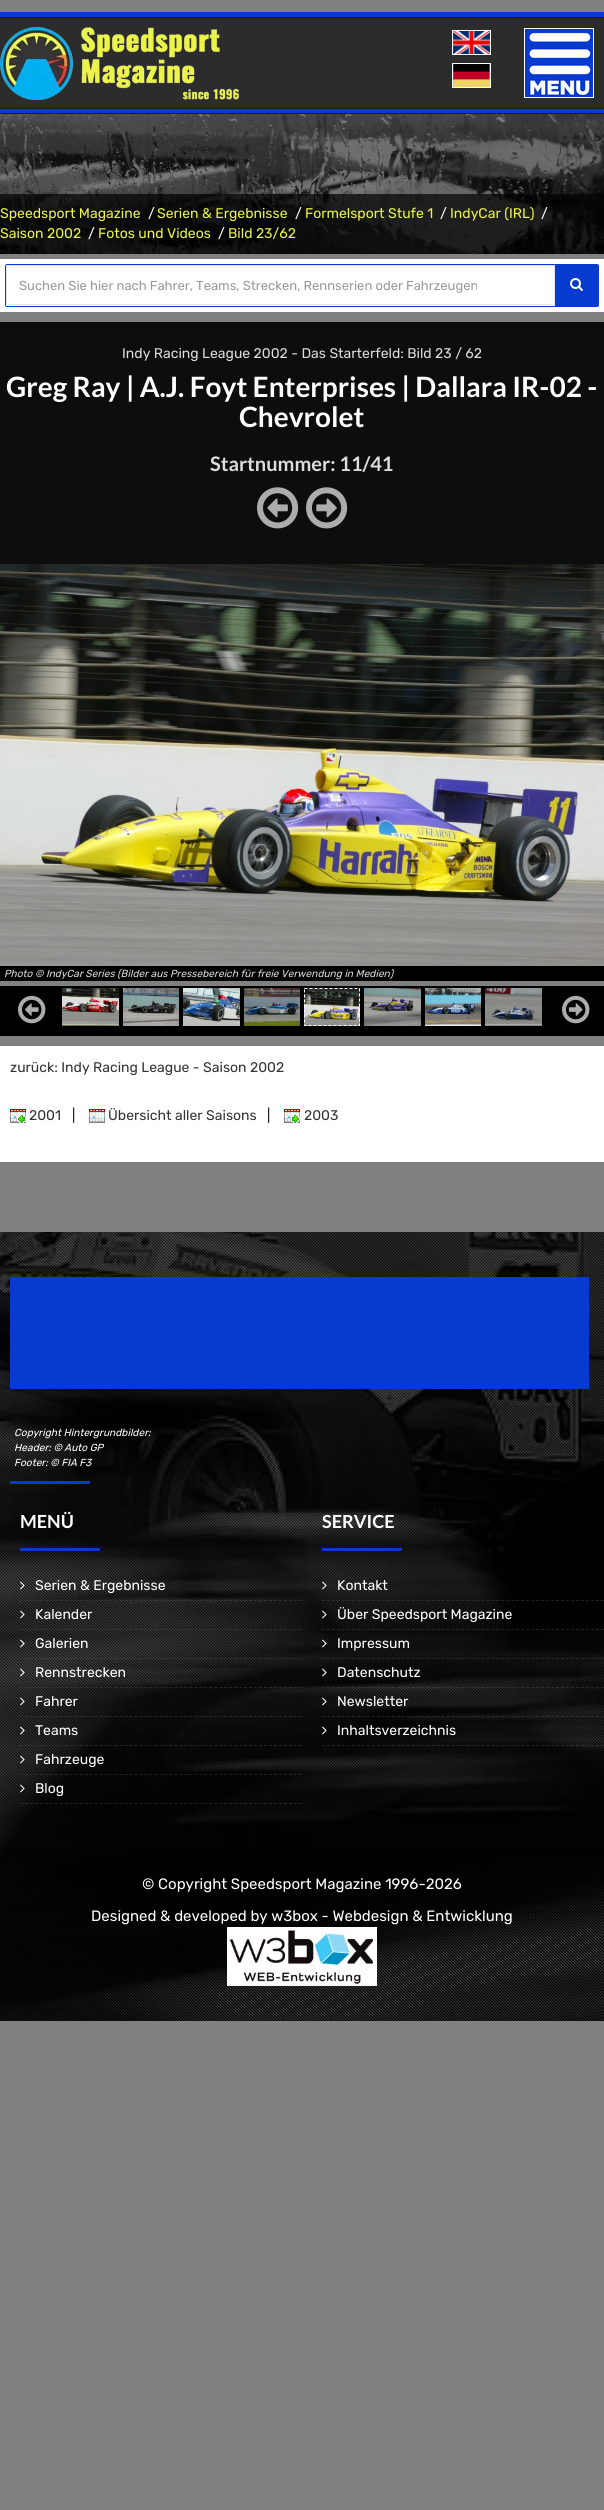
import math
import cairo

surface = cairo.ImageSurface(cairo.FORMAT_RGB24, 604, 2510)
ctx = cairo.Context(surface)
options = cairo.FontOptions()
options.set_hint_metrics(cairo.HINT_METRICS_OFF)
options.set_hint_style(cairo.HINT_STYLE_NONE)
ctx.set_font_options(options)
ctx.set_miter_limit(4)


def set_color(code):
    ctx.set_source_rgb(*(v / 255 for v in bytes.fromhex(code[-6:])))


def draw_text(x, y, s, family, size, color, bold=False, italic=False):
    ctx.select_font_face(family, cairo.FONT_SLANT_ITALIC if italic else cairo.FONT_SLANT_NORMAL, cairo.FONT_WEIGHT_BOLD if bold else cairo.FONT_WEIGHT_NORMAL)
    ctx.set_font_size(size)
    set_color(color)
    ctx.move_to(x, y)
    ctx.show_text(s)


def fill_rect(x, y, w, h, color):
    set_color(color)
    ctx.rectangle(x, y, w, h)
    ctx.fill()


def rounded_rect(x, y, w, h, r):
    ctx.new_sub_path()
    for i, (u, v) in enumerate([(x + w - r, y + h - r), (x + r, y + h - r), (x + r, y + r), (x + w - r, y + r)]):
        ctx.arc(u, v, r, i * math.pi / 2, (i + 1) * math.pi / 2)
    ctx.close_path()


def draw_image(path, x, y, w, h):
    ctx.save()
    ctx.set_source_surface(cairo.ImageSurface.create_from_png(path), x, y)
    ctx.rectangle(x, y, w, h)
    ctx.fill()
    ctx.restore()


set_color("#808080")
ctx.paint()
fill_rect(0, 12, 604, 5, "#073bcf")
fill_rect(0, 17, 604, 1, "#1d1d1d")
fill_rect(0, 18, 604, 90, "#2c2c2c")
draw_image("assets/img1.png", 0, 27, 239, 73)
ctx.rectangle(452.5, 30.5, 38, 24)
set_color("#ffffff")
ctx.set_line_width(1)
ctx.stroke()
draw_image("assets/img2.png", 453, 31, 37, 23)
ctx.rectangle(452.5, 63.5, 38, 24)
ctx.stroke()
draw_image("assets/img3.png", 453, 64, 37, 23)
draw_image("assets/img4.png", 525, 29, 68, 68)
ctx.rectangle(524.5, 28.5, 69, 69)
ctx.stroke()
fill_rect(0, 109, 604, 4, "#073bcf")
fill_rect(0, 108, 604, 1, "#1d1d1d")
fill_rect(0, 113, 604, 1, "#1d1d1d")
draw_image("assets/img5.png", 0, 114, 604, 140)
ctx.set_source_rgba(0, 0, 0, 0.7)
ctx.rectangle(0, 194, 604, 60)
ctx.fill()
draw_text(0, 218, "Speedsport Magazine", "Rubik Light", 14, "#ecf447")
draw_text(148, 218, "/", "Rubik Light", 14, "#ffffff")
draw_text(157, 218, "Serien & Ergebnisse", "Rubik Light", 14, "#ecf447")
draw_text(295, 218, "/", "Rubik Light", 14, "#ffffff")
draw_text(305, 218, "Formelsport Stufe 1", "Rubik Light", 14, "#ecf447")
draw_text(440, 218, "/", "Rubik Light", 14, "#ffffff")
draw_text(450, 218, "IndyCar (IRL)", "Rubik Light", 14, "#ecf447")
draw_text(541, 218, "/", "Rubik Light", 14, "#ffffff")
draw_text(0, 238, "Saison 2002", "Rubik Light", 14, "#ecf447")
draw_text(88, 238, "/", "Rubik Light", 14, "#ffffff")
draw_text(98, 238, "Fotos und Videos", "Rubik Light", 14, "#ecf447")
draw_text(218, 238, "/", "Rubik Light", 14, "#ffffff")
draw_text(228, 238, "Bild 23/62", "Rubik Light", 14, "#ecf447")
fill_rect(0, 259, 604, 53, "#ffffff")
rounded_rect(5.5, 264.5, 593, 42, 1.5)
set_color("#073bcf")
ctx.stroke()
ctx.rectangle(6.5, 265.5, 548, 39)
set_color("#e1e6eb")
ctx.stroke()
draw_text(19, 290, "Suchen Sie hier nach Fahrer, Teams, Strecken, Rennserien oder Fahrzeugen", "Rubik Light", 13, "#999999")
fill_rect(555, 265, 43, 41, "#073bcf")
draw_image("assets/img6.png", 570, 278, 13, 13)
fill_rect(0, 322, 604, 242, "#0d0d0d")
draw_text(122, 358, "Indy Racing League 2002 - Das Starterfeld: Bild 23 / 62", "Rubik Light", 14, "#dddddd")
draw_text(6, 397, "Greg Ray | A.J. Foyt Enterprises | Dallara IR-02 -", "Lato", 28, "#ffffff", bold=True)
draw_text(239, 427, "Chevrolet", "Lato", 28, "#ffffff", bold=True)
draw_text(210, 471, "Startnummer: 11/41", "Lato", 20, "#dddddd", bold=True)
draw_image("assets/img7.png", 257, 487, 42, 42)
draw_image("assets/img8.png", 306, 487, 42, 42)
fill_rect(0, 966, 604, 15, "#000000")
draw_image("assets/img9.png", 0, 564, 604, 402)
draw_text(4, 977, "Photo © IndyCar Series (Bilder aus Pressebereich für freie Verwendung in Medien)", "Rubik Light", 10.2, "#dddddd", italic=True)
fill_rect(0, 986, 604, 50, "#000000")
draw_image("assets/img10.png", 18, 995, 28, 29)
draw_image("assets/img11.png", 62, 988, 57, 38)
draw_image("assets/img12.png", 123, 988, 56, 38)
draw_image("assets/img13.png", 183, 988, 57, 38)
draw_image("assets/img14.png", 244, 988, 56, 38)
draw_image("assets/img15.png", 304, 988, 56, 38)
ctx.new_path()
ctx.move_to(304.5, 988.5)
ctx.line_to(359.5, 988.5)
ctx.line_to(359.5, 1025.5)
ctx.line_to(304.5, 1025.5)
ctx.close_path()
set_color("#ffffff")
ctx.set_dash([3, 2])
ctx.stroke()
draw_image("assets/img16.png", 364, 988, 57, 38)
draw_image("assets/img17.png", 425, 988, 56, 38)
draw_image("assets/img18.png", 485, 988, 57, 38)
draw_image("assets/img19.png", 562, 995, 28, 29)
fill_rect(0, 1046, 604, 116, "#ffffff")
draw_text(10, 1072, "zurück: Indy Racing League - Saison 2002", "Rubik Light", 14, "#333333")
draw_image("assets/img20.png", 10, 1109, 16, 14)
draw_text(29, 1120, "2001", "Rubik Light", 14, "#333333")
draw_text(72, 1120, "|", "Rubik Light", 14, "#1d1d1d")
draw_image("assets/img21.png", 89, 1109, 16, 14)
draw_text(108, 1120, "Übersicht aller Saisons", "Rubik Light", 14, "#333333")
draw_text(267, 1120, "|", "Rubik Light", 14, "#1d1d1d")
draw_image("assets/img22.png", 284, 1109, 16, 14)
draw_text(304, 1120, "2003", "Rubik Light", 14, "#333333")
draw_image("assets/img23.png", 0, 1232, 604, 789)
ctx.set_source_rgba(0, 0, 0, 0.7)
ctx.rectangle(0, 1232, 604, 617)
ctx.fill()
draw_image("assets/img24.png", 0, 1232, 604, 617)
fill_rect(10, 1277, 579, 112, "#073bcf")
draw_text(14, 1436, "Copyright Hintergrundbilder:", "Rubik Light", 10.2, "#ffffff", italic=True)
draw_text(14, 1451, "Header: © Auto GP", "Rubik Light", 10.2, "#ffffff", italic=True)
draw_text(14, 1466, "Footer: © FIA F3", "Rubik Light", 10.2, "#ffffff", italic=True)
fill_rect(10, 1481, 80, 3, "#073bcf")
draw_text(20, 1528, "MENÜ", "Lato", 18, "#ffffff", bold=True)
fill_rect(20, 1548, 80, 3, "#073bcf")
ctx.new_path()
ctx.move_to(20, 1600.5)
ctx.line_to(302, 1600.5)
ctx.set_source_rgba(0.4, 0.4, 0.4, 0.3)
ctx.set_dash([3, 1.98])
ctx.stroke()
draw_image("assets/img25.png", 20, 1581, 5, 9)
draw_text(35, 1590, "Serien & Ergebnisse", "Rubik Light", 14, "#ffffff")
ctx.new_path()
ctx.move_to(20, 1629.5)
ctx.line_to(302, 1629.5)
ctx.set_source_rgba(0.4, 0.4, 0.4, 0.3)
ctx.stroke()
draw_image("assets/img26.png", 20, 1610, 5, 9)
draw_text(35, 1619, "Kalender", "Rubik Light", 14, "#ffffff")
ctx.new_path()
ctx.move_to(20, 1658.5)
ctx.line_to(302, 1658.5)
ctx.set_source_rgba(0.4, 0.4, 0.4, 0.3)
ctx.stroke()
draw_image("assets/img27.png", 20, 1639, 5, 9)
draw_text(35, 1648, "Galerien", "Rubik Light", 14, "#ffffff")
ctx.new_path()
ctx.move_to(20, 1687.5)
ctx.line_to(302, 1687.5)
ctx.set_source_rgba(0.4, 0.4, 0.4, 0.3)
ctx.stroke()
draw_image("assets/img28.png", 20, 1668, 5, 9)
draw_text(35, 1677, "Rennstrecken", "Rubik Light", 14, "#ffffff")
ctx.new_path()
ctx.move_to(20, 1716.5)
ctx.line_to(302, 1716.5)
ctx.set_source_rgba(0.4, 0.4, 0.4, 0.3)
ctx.stroke()
draw_image("assets/img29.png", 20, 1697, 5, 9)
draw_text(35, 1706, "Fahrer", "Rubik Light", 14, "#ffffff")
ctx.new_path()
ctx.move_to(20, 1745.5)
ctx.line_to(302, 1745.5)
ctx.set_source_rgba(0.4, 0.4, 0.4, 0.3)
ctx.stroke()
draw_image("assets/img30.png", 20, 1726, 5, 9)
draw_text(35, 1735, "Teams", "Rubik Light", 14, "#ffffff")
ctx.new_path()
ctx.move_to(20, 1774.5)
ctx.line_to(302, 1774.5)
ctx.set_source_rgba(0.4, 0.4, 0.4, 0.3)
ctx.stroke()
draw_image("assets/img31.png", 20, 1755, 5, 9)
draw_text(35, 1764, "Fahrzeuge", "Rubik Light", 14, "#ffffff")
ctx.new_path()
ctx.move_to(20, 1803.5)
ctx.line_to(302, 1803.5)
ctx.set_source_rgba(0.4, 0.4, 0.4, 0.3)
ctx.stroke()
draw_image("assets/img32.png", 20, 1784, 5, 9)
draw_text(35, 1793, "Blog", "Rubik Light", 14, "#ffffff")
draw_text(322, 1528, "SERVICE", "Lato", 18, "#ffffff", bold=True)
fill_rect(322, 1548, 80, 3, "#073bcf")
ctx.new_path()
ctx.move_to(322, 1600.5)
ctx.line_to(604, 1600.5)
ctx.set_source_rgba(0.4, 0.4, 0.4, 0.3)
ctx.stroke()
draw_image("assets/img33.png", 322, 1581, 5, 9)
draw_text(337, 1590, "Kontakt", "Rubik Light", 14, "#ffffff")
ctx.new_path()
ctx.move_to(322, 1629.5)
ctx.line_to(604, 1629.5)
ctx.set_source_rgba(0.4, 0.4, 0.4, 0.3)
ctx.stroke()
draw_image("assets/img34.png", 322, 1610, 5, 9)
draw_text(337, 1619, "Über Speedsport Magazine", "Rubik Light", 14, "#ffffff")
ctx.new_path()
ctx.move_to(322, 1658.5)
ctx.line_to(604, 1658.5)
ctx.set_source_rgba(0.4, 0.4, 0.4, 0.3)
ctx.stroke()
draw_image("assets/img35.png", 322, 1639, 5, 9)
draw_text(337, 1648, "Impressum", "Rubik Light", 14, "#ffffff")
ctx.new_path()
ctx.move_to(322, 1687.5)
ctx.line_to(604, 1687.5)
ctx.set_source_rgba(0.4, 0.4, 0.4, 0.3)
ctx.stroke()
draw_image("assets/img36.png", 322, 1668, 5, 9)
draw_text(337, 1677, "Datenschutz", "Rubik Light", 14, "#ffffff")
ctx.new_path()
ctx.move_to(322, 1716.5)
ctx.line_to(604, 1716.5)
ctx.set_source_rgba(0.4, 0.4, 0.4, 0.3)
ctx.stroke()
draw_image("assets/img37.png", 322, 1697, 5, 9)
draw_text(337, 1706, "Newsletter", "Rubik Light", 14, "#ffffff")
ctx.new_path()
ctx.move_to(322, 1745.5)
ctx.line_to(604, 1745.5)
ctx.set_source_rgba(0.4, 0.4, 0.4, 0.3)
ctx.stroke()
draw_image("assets/img38.png", 322, 1726, 5, 9)
draw_text(337, 1735, "Inhaltsverzeichnis", "Rubik Light", 14, "#ffffff")
ctx.set_source_rgba(0, 0, 0, 0.8)
ctx.rectangle(0, 1849, 604, 172)
ctx.fill()
draw_image("assets/img39.png", 0, 1849, 604, 172)
draw_text(142, 1889, "© Copyright Speedsport Magazine 1996-2026", "Rubik Light", 15, "#ffffff")
draw_text(91, 1921, "Designed & developed by w3box - Webdesign & Entwicklung", "Rubik Light", 15, "#ffffff")
draw_image("assets/img40.png", 227, 1927, 150, 59)
surface.write_to_png("output.png")
